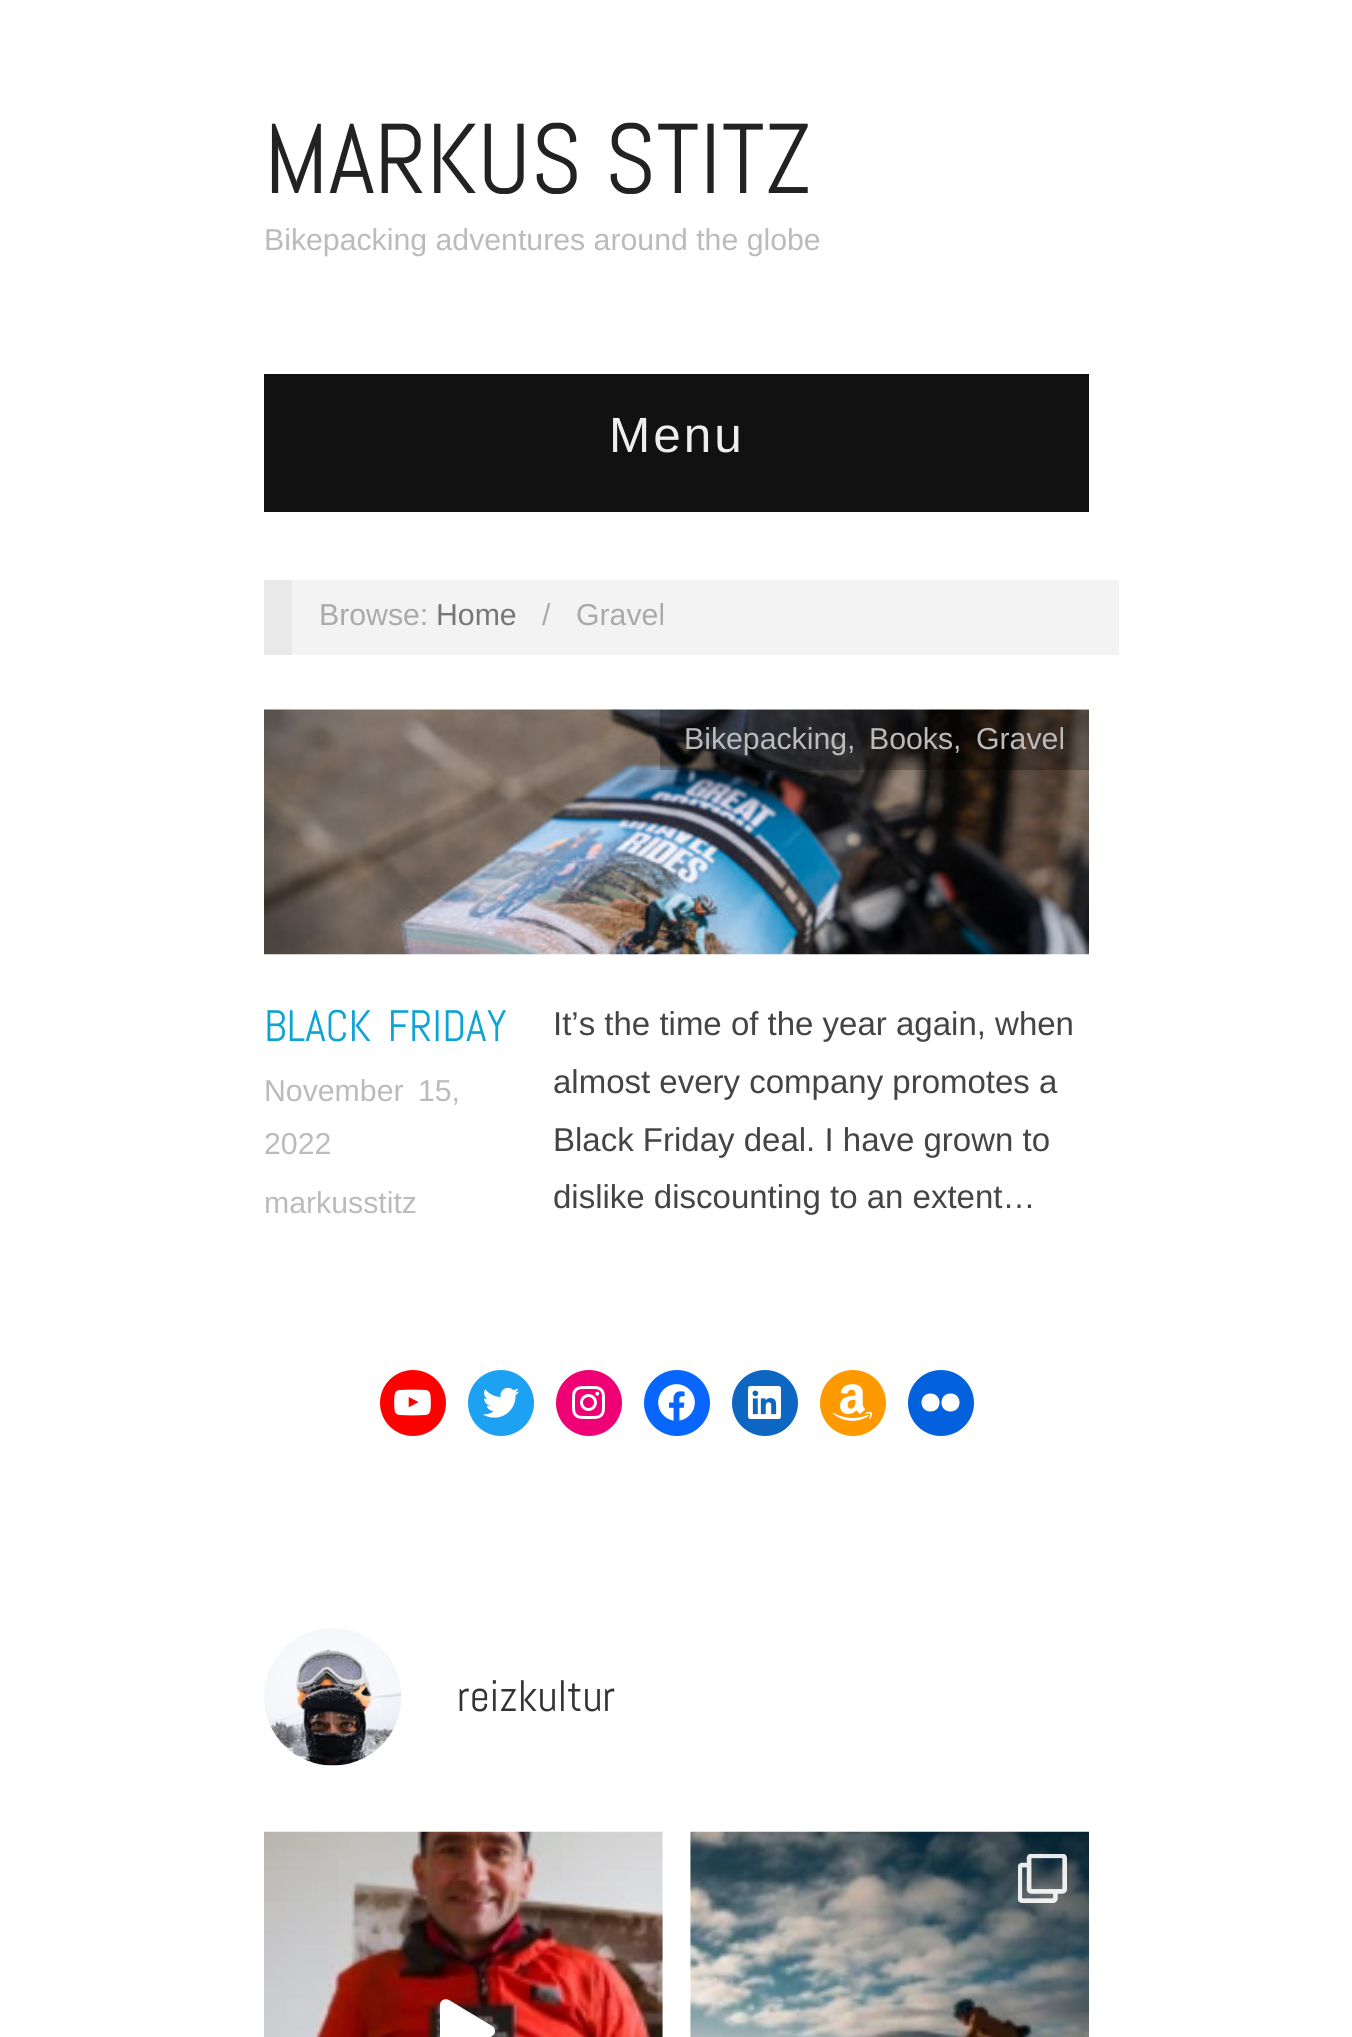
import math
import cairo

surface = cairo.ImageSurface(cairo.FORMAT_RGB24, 1352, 2037)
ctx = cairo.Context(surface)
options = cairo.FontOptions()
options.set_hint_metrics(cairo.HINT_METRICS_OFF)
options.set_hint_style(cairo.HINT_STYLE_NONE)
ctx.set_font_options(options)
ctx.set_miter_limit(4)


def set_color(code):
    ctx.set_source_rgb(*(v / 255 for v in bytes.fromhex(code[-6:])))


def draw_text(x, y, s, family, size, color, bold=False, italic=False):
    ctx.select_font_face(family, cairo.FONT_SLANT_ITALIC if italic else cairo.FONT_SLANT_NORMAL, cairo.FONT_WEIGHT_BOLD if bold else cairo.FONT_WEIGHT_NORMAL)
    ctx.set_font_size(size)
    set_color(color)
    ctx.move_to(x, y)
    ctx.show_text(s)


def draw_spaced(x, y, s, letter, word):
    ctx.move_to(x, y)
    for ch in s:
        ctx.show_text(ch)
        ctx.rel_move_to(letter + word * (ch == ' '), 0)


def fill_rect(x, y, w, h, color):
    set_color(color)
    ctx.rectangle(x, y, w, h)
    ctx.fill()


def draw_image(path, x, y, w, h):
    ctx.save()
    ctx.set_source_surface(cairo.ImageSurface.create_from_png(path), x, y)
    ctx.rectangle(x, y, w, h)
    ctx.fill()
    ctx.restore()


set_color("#ffffff")
ctx.paint()
draw_text(264, 193, "MARKUS STITZ", "Abel", 99, "#222222")
draw_text(264, 250, "Bikepacking adventures around the globe", "Liberation Sans", 30.25, "#bbbbbb")
fill_rect(264, 374, 825, 138, "#111111")
ctx.set_font_size(49.5)
set_color("#eeeeee")
draw_spaced(609, 452, "Menu", 3, 0)
fill_rect(292, 580, 827, 75, "#f3f3f3")
fill_rect(264, 580, 28, 75, "#e9e9e9")
draw_text(319, 625, "Browse:", "Liberation Sans", 30.25, "#aaaaaa")
draw_text(436, 625, "Home", "Liberation Sans", 30.25, "#777777")
draw_text(542, 625, "/", "Liberation Sans", 30.25, "#aaaaaa")
draw_text(576, 625, "Gravel", "Liberation Sans", 30.25, "#aaaaaa")
draw_image("assets/img1.png", 264, 709, 825, 246)
ctx.set_source_rgba(0, 0, 0, 0.25)
ctx.rectangle(660, 710, 429, 60)
ctx.fill()
draw_text(684, 749, "Bikepacking,", "Liberation Sans", 30.25, "#bbbbbb")
draw_text(869, 749, "Books,", "Liberation Sans", 30.25, "#bbbbbb")
draw_text(976, 749, "Gravel", "Liberation Sans", 30.25, "#bbbbbb")
ctx.select_font_face("Abel")
ctx.set_font_size(44)
set_color("#0da4d3")
draw_spaced(264, 1041, "BLACK FRIDAY", 0, 6)
ctx.select_font_face("Liberation Sans")
ctx.set_font_size(30.25)
set_color("#bbbbbb")
draw_spaced(264, 1101, "November 15,", 0, 6)
draw_text(264, 1154, "2022", "Liberation Sans", 30.25, "#bbbbbb")
draw_text(264, 1213, "markusstitz", "Liberation Sans", 30.25, "#bbbbbb")
draw_text(553, 1035, "It’s the time of the year again, when", "Liberation Sans", 33, "#444444")
draw_text(553, 1093, "almost every company promotes a", "Liberation Sans", 33, "#444444")
draw_text(553, 1151, "Black Friday deal. I have grown to", "Liberation Sans", 33, "#444444")
draw_text(553, 1208, "dislike discounting to an extent…", "Liberation Sans", 33, "#444444")
set_color("#ff0000")
ctx.new_path()
ctx.arc(413, 1403, 33, 0, 2 * math.pi)
ctx.fill()
draw_image("assets/img2.png", 394, 1389, 37, 27)
set_color("#1da1f2")
ctx.arc(501, 1403, 33, 0, 2 * math.pi)
ctx.fill()
draw_image("assets/img3.png", 482, 1387, 38, 31)
set_color("#f00075")
ctx.arc(589, 1403, 33, 0, 2 * math.pi)
ctx.fill()
draw_image("assets/img4.png", 572, 1386, 33, 33)
set_color("#0866ff")
ctx.arc(677, 1403, 33, 0, 2 * math.pi)
ctx.fill()
draw_image("assets/img5.png", 658, 1384, 37, 37)
set_color("#0d66c2")
ctx.arc(765, 1403, 33, 0, 2 * math.pi)
ctx.fill()
draw_image("assets/img6.png", 748, 1386, 33, 33)
set_color("#ff9900")
ctx.arc(853, 1403, 33, 0, 2 * math.pi)
ctx.fill()
draw_image("assets/img7.png", 832, 1384, 41, 37)
set_color("#0461dd")
ctx.arc(941, 1403, 33, 0, 2 * math.pi)
ctx.fill()
set_color("#ffffff")
ctx.new_path()
ctx.move_to(930.5, 1393.5)
ctx.curve_to(918.5, 1393.5, 918.5, 1411.5, 930.5, 1411.5)
ctx.curve_to(942.5, 1411.5, 942.5, 1393.5, 930.5, 1393.5)
ctx.close_path()
ctx.move_to(950.5, 1393.5)
ctx.curve_to(938.5, 1393.5, 938.5, 1411.5, 950.5, 1411.5)
ctx.curve_to(962.5, 1411.5, 962.5, 1393.5, 950.5, 1393.5)
ctx.close_path()
ctx.fill()
draw_image("assets/img8.png", 264, 1628, 138, 138)
draw_text(457, 1711, "reizkultur", "Abel", 44, "#333333")
draw_image("assets/img9.png", 264, 1831, 399, 206)
set_color("#ffffff")
ctx.new_path()
ctx.move_to(492, 2026)
ctx.line_to(449, 2000)
ctx.curve_to(445, 1998, 440, 2000, 440, 2005)
ctx.line_to(440, 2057)
ctx.curve_to(440, 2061, 445, 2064, 449, 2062)
ctx.line_to(492, 2036)
ctx.curve_to(496, 2034, 496, 2028, 492, 2026)
ctx.close_path()
ctx.fill()
draw_image("assets/img10.png", 690, 1831, 399, 206)
draw_image("assets/img11.png", 1018, 1854, 49, 49)
surface.write_to_png("output.png")
